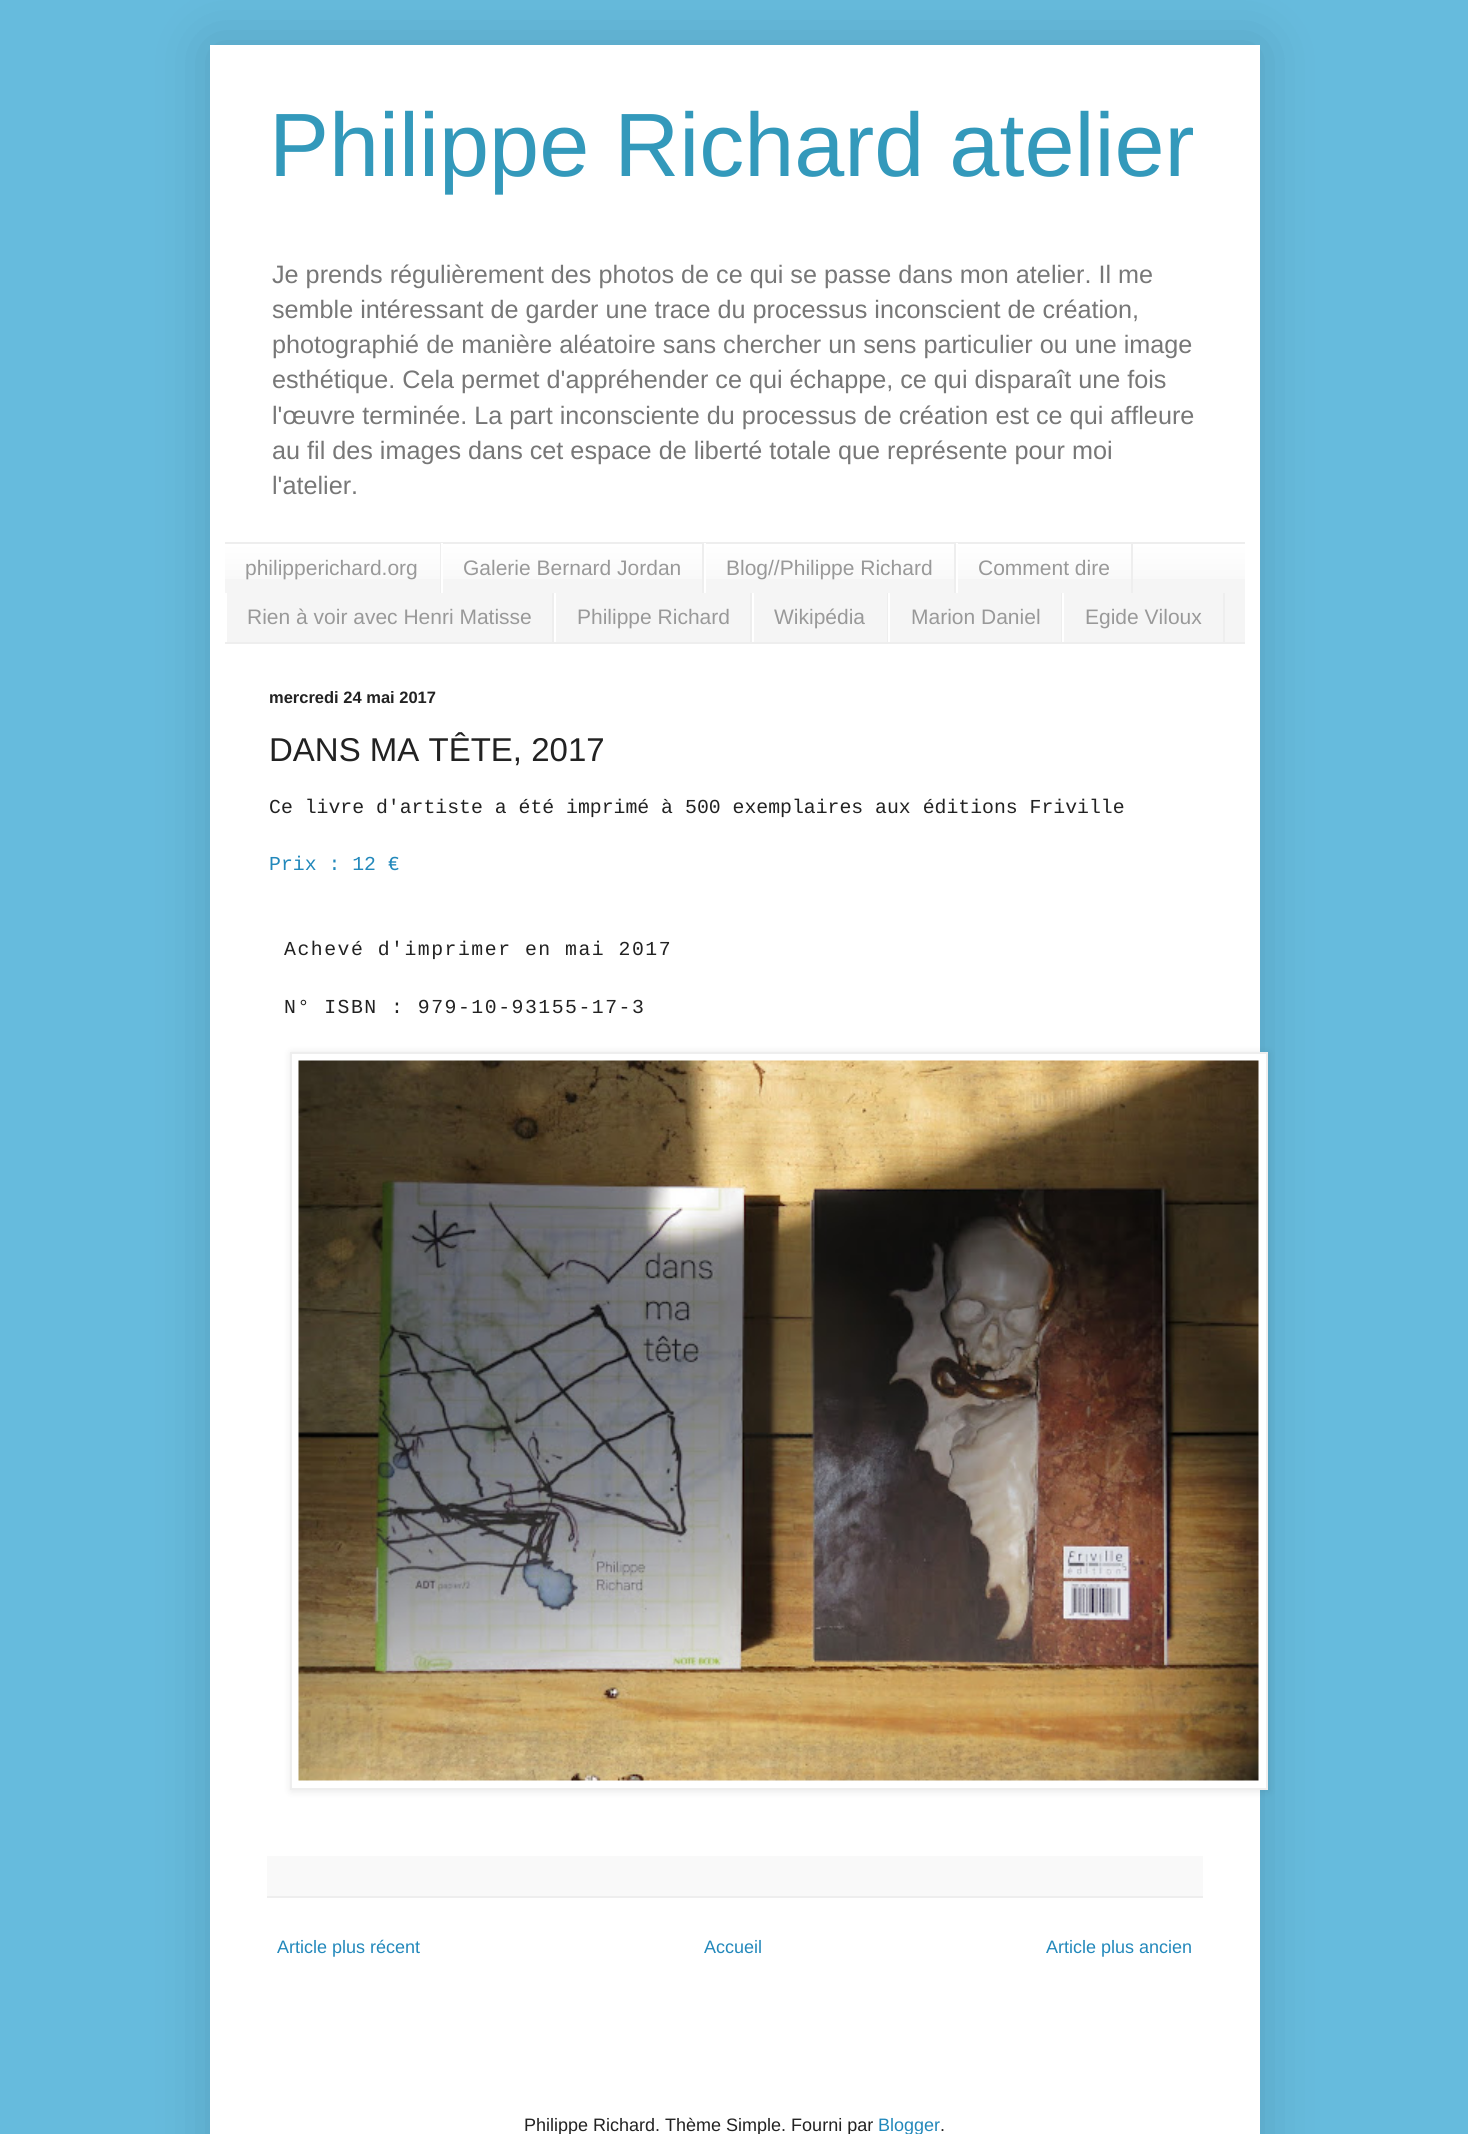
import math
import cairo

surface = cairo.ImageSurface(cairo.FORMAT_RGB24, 1468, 2134)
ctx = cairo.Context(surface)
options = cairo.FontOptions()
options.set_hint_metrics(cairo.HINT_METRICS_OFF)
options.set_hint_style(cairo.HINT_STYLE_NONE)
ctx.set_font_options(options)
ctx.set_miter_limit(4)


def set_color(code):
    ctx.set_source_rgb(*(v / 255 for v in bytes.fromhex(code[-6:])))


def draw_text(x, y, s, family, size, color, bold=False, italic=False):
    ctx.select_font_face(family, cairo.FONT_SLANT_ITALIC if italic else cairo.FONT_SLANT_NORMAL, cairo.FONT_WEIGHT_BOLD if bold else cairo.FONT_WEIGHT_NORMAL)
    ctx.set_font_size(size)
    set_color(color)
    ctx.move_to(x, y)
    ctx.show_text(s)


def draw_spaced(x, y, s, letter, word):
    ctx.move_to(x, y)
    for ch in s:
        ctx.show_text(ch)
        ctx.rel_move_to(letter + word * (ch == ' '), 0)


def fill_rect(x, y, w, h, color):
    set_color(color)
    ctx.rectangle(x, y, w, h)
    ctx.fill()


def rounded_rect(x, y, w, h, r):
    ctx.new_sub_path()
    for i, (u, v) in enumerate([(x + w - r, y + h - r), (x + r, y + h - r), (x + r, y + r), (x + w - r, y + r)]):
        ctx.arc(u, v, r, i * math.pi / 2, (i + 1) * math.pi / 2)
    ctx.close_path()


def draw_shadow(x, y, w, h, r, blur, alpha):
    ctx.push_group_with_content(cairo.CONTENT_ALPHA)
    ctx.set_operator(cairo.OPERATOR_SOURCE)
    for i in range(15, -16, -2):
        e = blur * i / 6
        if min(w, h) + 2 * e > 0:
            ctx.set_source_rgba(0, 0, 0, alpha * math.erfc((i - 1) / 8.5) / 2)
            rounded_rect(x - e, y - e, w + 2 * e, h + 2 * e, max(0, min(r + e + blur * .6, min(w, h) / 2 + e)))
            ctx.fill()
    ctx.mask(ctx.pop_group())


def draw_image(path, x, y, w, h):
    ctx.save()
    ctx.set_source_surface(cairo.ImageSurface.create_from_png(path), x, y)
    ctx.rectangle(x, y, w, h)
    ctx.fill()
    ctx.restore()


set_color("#66bbdd")
ctx.paint()
set_color("#000000")
draw_shadow(210, 45, 1050, 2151, 0, 30, 0.15)
fill_rect(210, 45, 1050, 2089, "#ffffff")
draw_text(269, 176, "Philippe Richard atelier", "Liberation Sans", 90, "#3399bb")
draw_text(272, 283, "Je prends régulièrement des photos de ce qui se passe dans mon atelier. Il me", "Liberation Sans", 25.2, "#777777")
draw_text(272, 318, "semble intéressant de garder une trace du processus inconscient de création,", "Liberation Sans", 25.2, "#777777")
draw_text(272, 353, "photographié de manière aléatoire sans chercher un sens particulier ou une image", "Liberation Sans", 25.2, "#777777")
draw_text(272, 388, "esthétique. Cela permet d'appréhender ce qui échappe, ce qui disparaît une fois", "Liberation Sans", 25.2, "#777777")
draw_text(272, 424, "l'œuvre terminée. La part inconsciente du processus de création est ce qui affleure", "Liberation Sans", 25.2, "#777777")
draw_text(272, 459, "au fil des images dans cet espace de liberté totale que représente pour moi", "Liberation Sans", 25.2, "#777777")
draw_text(272, 494, "l'atelier.", "Liberation Sans", 25.2, "#777777")
fill_rect(225, 545, 1020, 97, "#f5f5f5")
draw_image("assets/img1.png", 225, 544, 1020, 35)
fill_rect(225, 542, 1020, 2, "#eeeeee")
fill_rect(225, 642, 1020, 2, "#eeeeee")
fill_rect(440, 543, 1, 50, "#eeeeee")
draw_text(245, 575, "philipperichard.org", "Liberation Sans", 21, "#999999")
fill_rect(702, 543, 2, 50, "#eeeeee")
fill_rect(441, 543, 2, 50, "#ffffff")
draw_text(463, 575, "Galerie Bernard Jordan", "Liberation Sans", 21, "#999999")
fill_rect(954, 543, 2, 50, "#eeeeee")
fill_rect(704, 543, 2, 50, "#ffffff")
draw_text(726, 575, "Blog//Philippe Richard", "Liberation Sans", 21, "#999999")
fill_rect(1131, 543, 2, 50, "#eeeeee")
fill_rect(956, 543, 2, 50, "#ffffff")
draw_text(978, 575, "Comment dire", "Liberation Sans", 21, "#999999")
fill_rect(552, 593, 2, 49, "#eeeeee")
fill_rect(225, 593, 2, 49, "#ffffff")
draw_text(247, 624, "Rien à voir avec Henri Matisse", "Liberation Sans", 21, "#999999")
fill_rect(750, 593, 2, 49, "#eeeeee")
fill_rect(554, 593, 2, 49, "#ffffff")
draw_text(577, 624, "Philippe Richard", "Liberation Sans", 21, "#999999")
fill_rect(887, 593, 1, 49, "#eeeeee")
fill_rect(752, 593, 2, 49, "#ffffff")
draw_text(774, 624, "Wikipédia", "Liberation Sans", 21, "#999999")
fill_rect(1061, 593, 1, 49, "#eeeeee")
fill_rect(888, 593, 2, 49, "#ffffff")
draw_text(911, 624, "Marion Daniel", "Liberation Sans", 21, "#999999")
fill_rect(1223, 593, 2, 49, "#eeeeee")
fill_rect(1062, 593, 2, 49, "#ffffff")
draw_text(1085, 624, "Egide Viloux", "Liberation Sans", 21, "#999999")
draw_text(269, 703, "mercredi 24 mai 2017", "Liberation Sans", 16.5, "#222222", bold=True)
draw_text(269, 761, "DANS MA TÊTE, 2017", "Liberation Sans", 33, "#222222")
draw_text(269, 813, "Ce livre d'artiste a été imprimé à", "Liberation Mono", 19.8, "#222222")
draw_text(685, 813, "500 exemplaires aux éditions Friville", "Liberation Mono", 19.8, "#222222")
draw_text(269, 870, "Prix : 12 €", "Liberation Mono", 19.8, "#2288bb")
set_color("#222222")
draw_spaced(284, 955, "Achevé d'imprimer en mai 2017", 1.5, 0)
draw_spaced(284, 1013, "N° ISBN : 979-10-93155-17-3", 1.5, 0)
set_color("#000000")
draw_shadow(291, 1053, 978, 738, 0, 4, 0.1)
set_color("#ffffff")
ctx.rectangle(291, 1053, 976, 736)
ctx.fill_preserve()
set_color("#eeeeee")
ctx.stroke()
draw_image("assets/img2.png", 298, 1060, 961, 721)
fill_rect(267, 1856, 936, 40, "#f9f9f9")
fill_rect(267, 1896, 936, 2, "#eeeeee")
draw_text(277, 1953, "Article plus récent", "Liberation Sans", 18, "#2288bb")
draw_text(704, 1953, "Accueil", "Liberation Sans", 18, "#2288bb")
draw_text(1046, 1953, "Article plus ancien", "Liberation Sans", 18, "#2288bb")
draw_text(524, 2131, "Philippe Richard. Thème Simple. Fourni par", "Liberation Sans", 18, "#222222")
draw_text(878, 2131, "Blogger", "Liberation Sans", 18, "#2288bb")
draw_text(940, 2131, ".", "Liberation Sans", 18, "#222222")
surface.write_to_png("output.png")
